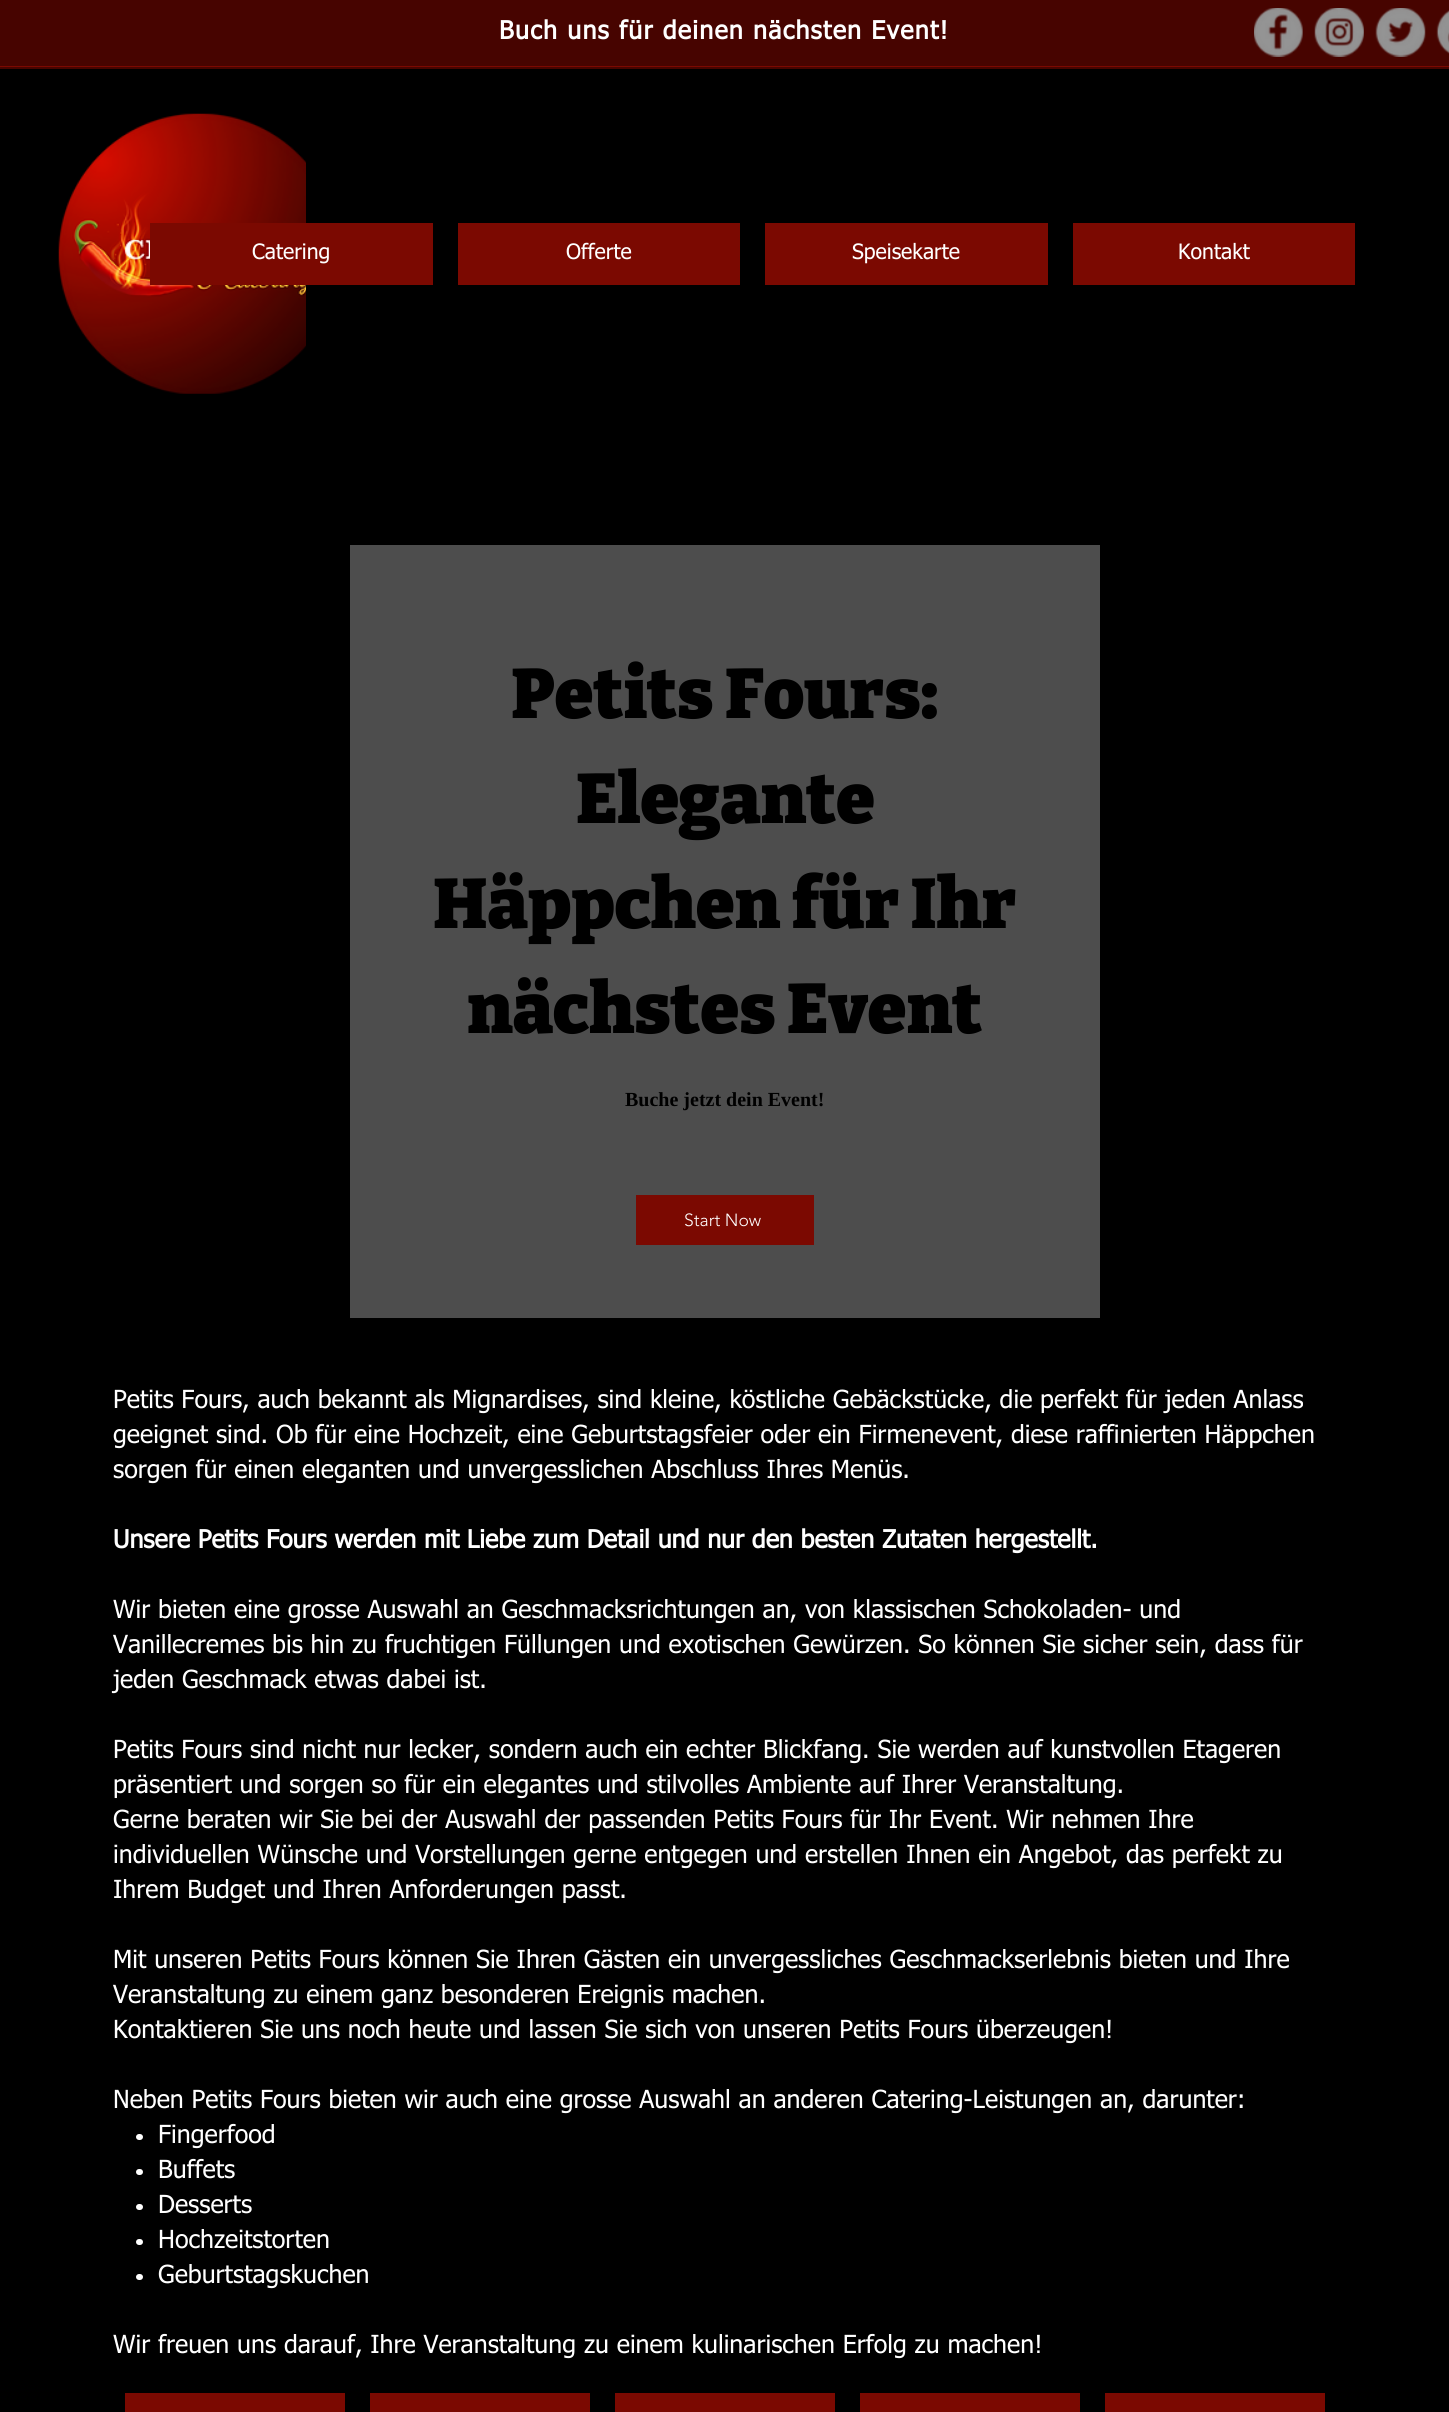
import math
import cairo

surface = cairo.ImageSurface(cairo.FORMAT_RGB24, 1449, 2412)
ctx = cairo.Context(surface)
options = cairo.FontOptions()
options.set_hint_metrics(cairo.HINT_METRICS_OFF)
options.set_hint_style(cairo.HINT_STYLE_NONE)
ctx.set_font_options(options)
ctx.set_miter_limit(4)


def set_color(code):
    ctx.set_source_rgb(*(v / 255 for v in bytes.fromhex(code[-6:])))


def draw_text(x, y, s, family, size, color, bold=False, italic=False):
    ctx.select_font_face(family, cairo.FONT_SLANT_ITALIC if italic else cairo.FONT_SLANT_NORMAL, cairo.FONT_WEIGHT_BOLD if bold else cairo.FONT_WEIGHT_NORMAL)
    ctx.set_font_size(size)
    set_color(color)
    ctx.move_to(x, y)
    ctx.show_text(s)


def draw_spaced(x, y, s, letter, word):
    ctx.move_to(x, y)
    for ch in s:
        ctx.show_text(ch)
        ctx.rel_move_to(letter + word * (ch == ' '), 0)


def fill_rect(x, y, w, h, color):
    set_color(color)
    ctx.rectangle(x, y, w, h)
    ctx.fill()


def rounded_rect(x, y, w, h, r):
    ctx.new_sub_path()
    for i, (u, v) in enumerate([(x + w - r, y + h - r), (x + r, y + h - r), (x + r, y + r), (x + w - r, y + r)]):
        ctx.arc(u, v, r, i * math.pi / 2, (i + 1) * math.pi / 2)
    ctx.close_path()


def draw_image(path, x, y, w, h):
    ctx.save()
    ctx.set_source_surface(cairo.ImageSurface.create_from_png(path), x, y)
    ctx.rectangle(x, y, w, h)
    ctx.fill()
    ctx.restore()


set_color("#000000")
ctx.paint()
fill_rect(0, 0, 1449, 69, "#470400")
ctx.select_font_face("tahoma", cairo.FONT_SLANT_NORMAL, cairo.FONT_WEIGHT_BOLD)
ctx.set_font_size(25)
set_color("#ffffff")
draw_spaced(499, 39, "Buch uns für deinen nächsten Event!", 1.25, 0)
draw_image("assets/img1.png", 1254, 8, 49, 49)
draw_image("assets/img2.png", 1314, 8, 50, 49)
draw_image("assets/img3.png", 1375, 8, 51, 49)
draw_image("assets/img4.png", 1436, 10, 13, 44)
fill_rect(0, 66, 1449, 1, "#7b0901")
draw_image("assets/img5.png", 58, 113, 248, 281)
fill_rect(150, 223, 283, 62, "#7b0901")
draw_text(252, 259, "Catering", "tahoma", 21.25, "#ffffff")
fill_rect(458, 223, 282, 62, "#7b0901")
draw_text(566, 259, "Offerte", "tahoma", 21.25, "#ffffff")
fill_rect(765, 223, 283, 62, "#7b0901")
draw_text(852, 259, "Speisekarte", "tahoma", 21.25, "#ffffff")
fill_rect(1073, 223, 282, 62, "#7b0901")
draw_text(1178, 259, "Kontakt", "tahoma", 21.25, "#ffffff")
fill_rect(350, 545, 750, 773, "#4d4d4d")
draw_text(511, 718, "Petits Fours:", "Bitter Black", 70, "#000000")
draw_text(576, 823, "Elegante", "Bitter Black", 70, "#000000")
draw_text(433, 928, "Häppchen für Ihr", "Bitter Black", 70, "#000000")
draw_text(467, 1033, "nächstes Event", "Bitter Black", 70, "#000000")
draw_text(625, 1106, "Buche jetzt dein Event!", "Liberation Serif", 20, "#000000", bold=True)
fill_rect(636, 1195, 178, 50, "#7b0901")
draw_text(684, 1226, "Start Now", "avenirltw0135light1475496 Light", 17.5, "#ffffff")
draw_text(113, 1408, "Petits Fours, auch bekannt als Mignardises, sind kleine, köstliche Gebäckstücke, die perfekt für jeden Anlass", "tahoma", 25, "#ffffff")
draw_text(113, 1443, "geeignet sind. Ob für eine Hochzeit, eine Geburtstagsfeier oder ein Firmenevent, diese raffinierten Häppchen", "tahoma", 25, "#ffffff")
draw_text(113, 1478, "sorgen für einen eleganten und unvergesslichen Abschluss Ihres Menüs.", "tahoma", 25, "#ffffff")
draw_text(113, 1548, "Unsere Petits Fours werden mit Liebe zum Detail und nur den besten Zutaten hergestellt.", "tahoma", 25, "#ffffff", bold=True)
draw_text(113, 1618, "Wir bieten eine grosse Auswahl an Geschmacksrichtungen an, von klassischen Schokoladen- und", "tahoma", 25, "#ffffff")
draw_text(113, 1653, "Vanillecremes bis hin zu fruchtigen Füllungen und exotischen Gewürzen. So können Sie sicher sein, dass für", "tahoma", 25, "#ffffff")
draw_text(113, 1688, "jeden Geschmack etwas dabei ist.", "tahoma", 25, "#ffffff")
draw_text(113, 1758, "Petits Fours sind nicht nur lecker, sondern auch ein echter Blickfang. Sie werden auf kunstvollen Etageren", "tahoma", 25, "#ffffff")
draw_text(113, 1793, "präsentiert und sorgen so für ein elegantes und stilvolles Ambiente auf Ihrer Veranstaltung.", "tahoma", 25, "#ffffff")
draw_text(113, 1828, "Gerne beraten wir Sie bei der Auswahl der passenden Petits Fours für Ihr Event. Wir nehmen Ihre", "tahoma", 25, "#ffffff")
draw_text(113, 1863, "individuellen Wünsche und Vorstellungen gerne entgegen und erstellen Ihnen ein Angebot, das perfekt zu", "tahoma", 25, "#ffffff")
draw_text(113, 1898, "Ihrem Budget und Ihren Anforderungen passt.", "tahoma", 25, "#ffffff")
draw_text(113, 1968, "Mit unseren Petits Fours können Sie Ihren Gästen ein unvergessliches Geschmackserlebnis bieten und Ihre", "tahoma", 25, "#ffffff")
draw_text(113, 2003, "Veranstaltung zu einem ganz besonderen Ereignis machen.", "tahoma", 25, "#ffffff")
draw_text(113, 2038, "Kontaktieren Sie uns noch heute und lassen Sie sich von unseren Petits Fours überzeugen!", "tahoma", 25, "#ffffff")
draw_text(113, 2108, "Neben Petits Fours bieten wir auch eine grosse Auswahl an anderen Catering-Leistungen an, darunter:", "tahoma", 25, "#ffffff")
rounded_rect(136, 2134, 7, 6, 3)
ctx.fill()
draw_text(158, 2143, "Fingerfood", "tahoma", 25, "#ffffff")
rounded_rect(136, 2169, 7, 6, 3)
ctx.fill()
draw_text(158, 2178, "Buffets", "tahoma", 25, "#ffffff")
rounded_rect(136, 2204, 7, 6, 3)
ctx.fill()
draw_text(158, 2213, "Desserts", "tahoma", 25, "#ffffff")
rounded_rect(136, 2239, 7, 6, 3)
ctx.fill()
draw_text(158, 2248, "Hochzeitstorten", "tahoma", 25, "#ffffff")
rounded_rect(136, 2274, 7, 6, 3)
ctx.fill()
draw_text(158, 2283, "Geburtstagskuchen", "tahoma", 25, "#ffffff")
draw_text(113, 2353, "Wir freuen uns darauf, Ihre Veranstaltung zu einem kulinarischen Erfolg zu machen!", "tahoma", 25, "#ffffff")
fill_rect(125, 2393, 220, 19, "#7b0901")
fill_rect(370, 2393, 220, 19, "#7b0901")
fill_rect(615, 2393, 220, 19, "#7b0901")
fill_rect(860, 2393, 220, 19, "#7b0901")
fill_rect(1105, 2393, 220, 19, "#7b0901")
surface.write_to_png("output.png")
